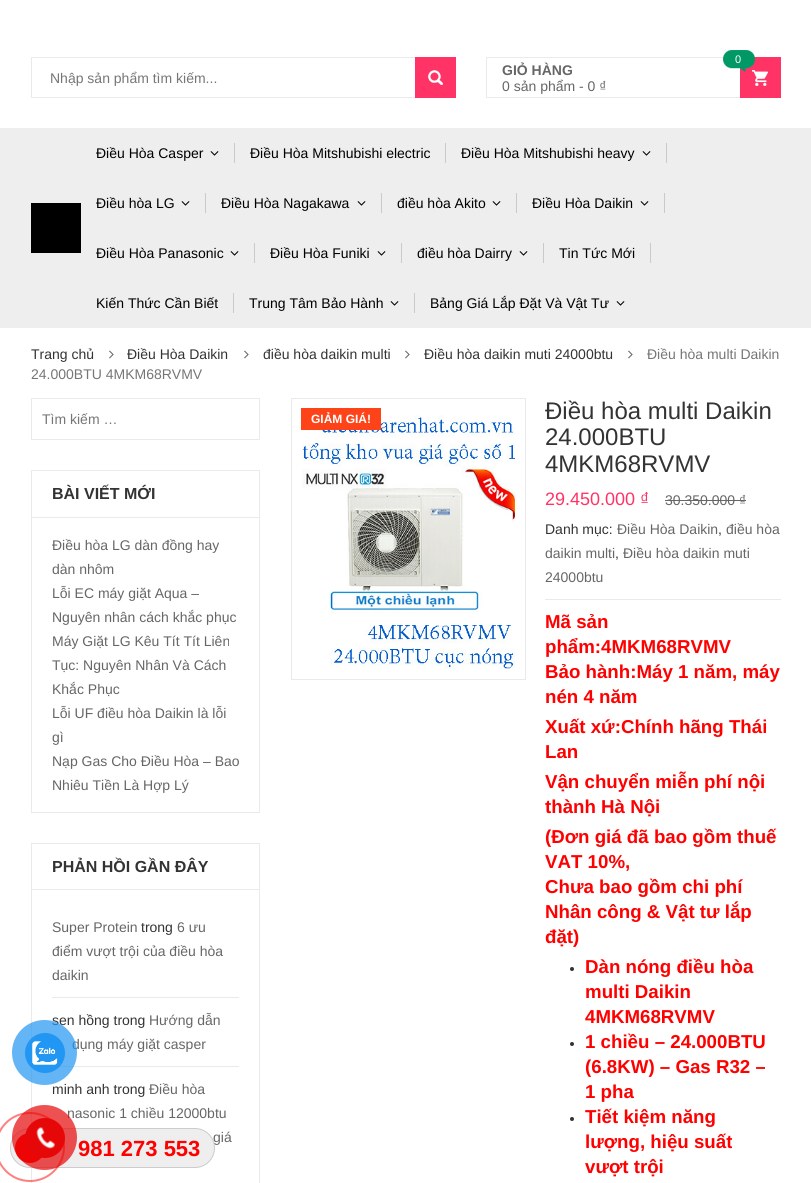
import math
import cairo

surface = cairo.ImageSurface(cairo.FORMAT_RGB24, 811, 1183)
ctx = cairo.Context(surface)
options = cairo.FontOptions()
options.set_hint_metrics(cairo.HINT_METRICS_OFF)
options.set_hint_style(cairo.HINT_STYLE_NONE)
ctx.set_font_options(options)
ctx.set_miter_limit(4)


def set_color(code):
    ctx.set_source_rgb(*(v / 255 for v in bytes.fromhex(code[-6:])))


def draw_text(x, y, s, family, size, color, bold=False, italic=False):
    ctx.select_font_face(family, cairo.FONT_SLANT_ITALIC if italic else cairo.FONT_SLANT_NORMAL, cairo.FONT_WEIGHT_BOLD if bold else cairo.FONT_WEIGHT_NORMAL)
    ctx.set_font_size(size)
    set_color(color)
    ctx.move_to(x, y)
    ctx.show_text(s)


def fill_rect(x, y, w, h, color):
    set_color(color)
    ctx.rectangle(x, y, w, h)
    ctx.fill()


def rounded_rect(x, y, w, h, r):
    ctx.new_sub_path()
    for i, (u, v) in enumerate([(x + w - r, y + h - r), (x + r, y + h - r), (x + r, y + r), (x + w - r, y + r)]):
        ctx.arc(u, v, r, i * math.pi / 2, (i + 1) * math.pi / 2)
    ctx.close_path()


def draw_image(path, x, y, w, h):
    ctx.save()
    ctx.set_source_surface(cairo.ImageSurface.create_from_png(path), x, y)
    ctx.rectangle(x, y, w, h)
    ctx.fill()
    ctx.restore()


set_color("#ffffff")
ctx.paint()
ctx.rectangle(31.5, 57.5, 424, 40)
set_color("#eaeaea")
ctx.set_line_width(1)
ctx.stroke()
draw_text(50, 83, "Nhập sản phẩm tìm kiếm...", "Liberation Sans", 14, "#767676")
fill_rect(415, 57, 41, 41, "#ff3366")
draw_image("assets/img1.png", 428, 70, 15, 15)
ctx.rectangle(486.5, 57.5, 294, 40)
set_color("#eaeaea")
ctx.stroke()
draw_text(502, 75, "GIỎ HÀNG", "Liberation Sans", 14, "#666666", bold=True)
fill_rect(740, 57, 41, 41, "#ff3366")
draw_image("assets/img3.png", 752, 70, 16, 16)
draw_image("assets/img2.png", 723, 50, 32, 22)
draw_text(735, 63, "0", "Liberation Sans", 11, "#ffffff")
draw_text(502, 91, "0 sản phẩm - 0 ₫", "Liberation Sans", 14, "#666666")
fill_rect(0, 128, 811, 200, "#eeeeee")
fill_rect(31, 203, 50, 50, "#000000")
fill_rect(234, 143, 1, 20, "#cacaca")
draw_text(96, 158, "Điều Hòa Casper", "Liberation Sans", 14, "#000000")
draw_image("assets/img4.png", 210, 151, 9, 5)
fill_rect(445, 143, 1, 20, "#cacaca")
draw_text(250, 158, "Điều Hòa Mitshubishi electric", "Liberation Sans", 14, "#000000")
fill_rect(666, 143, 1, 20, "#cacaca")
draw_text(461, 158, "Điều Hòa Mitshubishi heavy", "Liberation Sans", 14, "#000000")
draw_image("assets/img4.png", 642, 151, 9, 5)
fill_rect(205, 193, 1, 20, "#cacaca")
draw_text(96, 208, "Điều hòa LG", "Liberation Sans", 14, "#000000")
draw_image("assets/img4.png", 181, 201, 9, 5)
fill_rect(381, 193, 1, 20, "#cacaca")
draw_text(221, 208, "Điều Hòa Nagakawa", "Liberation Sans", 14, "#000000")
draw_image("assets/img4.png", 357, 201, 9, 5)
fill_rect(516, 193, 1, 20, "#cacaca")
draw_text(397, 208, "điều hòa Akito", "Liberation Sans", 14, "#000000")
draw_image("assets/img4.png", 492, 201, 9, 5)
fill_rect(664, 193, 1, 20, "#cacaca")
draw_text(532, 208, "Điều Hòa Daikin", "Liberation Sans", 14, "#000000")
draw_image("assets/img4.png", 640, 201, 9, 5)
fill_rect(254, 243, 1, 20, "#cacaca")
draw_text(96, 258, "Điều Hòa Panasonic", "Liberation Sans", 14, "#000000")
draw_image("assets/img4.png", 230, 251, 9, 5)
fill_rect(401, 243, 1, 20, "#cacaca")
draw_text(270, 258, "Điều Hòa Funiki", "Liberation Sans", 14, "#000000")
draw_image("assets/img4.png", 377, 251, 9, 5)
fill_rect(543, 243, 1, 20, "#cacaca")
draw_text(417, 258, "điều hòa Dairry", "Liberation Sans", 14, "#000000")
draw_image("assets/img4.png", 519, 251, 9, 5)
fill_rect(650, 243, 1, 20, "#cacaca")
draw_text(559, 258, "Tin Tức Mới", "Liberation Sans", 14, "#000000")
fill_rect(233, 293, 1, 20, "#cacaca")
draw_text(96, 308, "Kiến Thức Cần Biết", "Liberation Sans", 14, "#000000")
fill_rect(414, 293, 1, 20, "#cacaca")
draw_text(249, 308, "Trung Tâm Bảo Hành", "Liberation Sans", 14, "#000000")
draw_image("assets/img4.png", 390, 301, 9, 5)
draw_text(430, 308, "Bảng Giá Lắp Đặt Và Vật Tư", "Liberation Sans", 14, "#000000")
draw_image("assets/img4.png", 616, 301, 9, 5)
draw_text(31, 359, "Trang chủ", "Liberation Sans", 14, "#333333")
draw_image("assets/img5.png", 109, 350, 5, 9)
draw_text(127, 359, "Điều Hòa Daikin", "Liberation Sans", 14, "#333333")
draw_image("assets/img5.png", 244, 350, 5, 9)
draw_text(263, 359, "điều hòa daikin multi", "Liberation Sans", 14, "#333333")
draw_image("assets/img5.png", 405, 350, 5, 9)
draw_text(424, 359, "Điều hòa daikin muti 24000btu", "Liberation Sans", 14, "#333333")
draw_image("assets/img5.png", 628, 350, 5, 9)
draw_text(647, 359, "Điều hòa multi Daikin", "Liberation Sans", 14, "#767676")
draw_text(31, 379, "24.000BTU 4MKM68RVMV", "Liberation Sans", 14, "#767676")
ctx.rectangle(31.5, 398.5, 228, 41)
set_color("#eaeaea")
ctx.stroke()
draw_text(42, 424, "Tìm kiếm …", "Liberation Sans", 14, "#767676")
ctx.rectangle(31.5, 470.5, 228, 342)
set_color("#eaeaea")
ctx.stroke()
fill_rect(32, 517, 227, 1, "#eaeaea")
draw_text(52, 499, "BÀI VIẾT MỚI", "Liberation Sans", 16, "#333333", bold=True)
draw_text(52, 550, "Điều hòa LG dàn đồng hay", "Liberation Sans", 14, "#666666")
draw_text(52, 574, "dàn nhôm", "Liberation Sans", 14, "#666666")
draw_text(52, 598, "Lỗi EC máy giặt Aqua –", "Liberation Sans", 14, "#666666")
draw_text(52, 622, "Nguyên nhân cách khắc phục", "Liberation Sans", 14, "#666666")
draw_text(52, 646, "Máy Giặt LG Kêu Tít Tít Liên", "Liberation Sans", 14, "#666666")
draw_text(52, 670, "Tục: Nguyên Nhân Và Cách", "Liberation Sans", 14, "#666666")
draw_text(52, 694, "Khắc Phục", "Liberation Sans", 14, "#666666")
draw_text(52, 718, "Lỗi UF điều hòa Daikin là lỗi", "Liberation Sans", 14, "#666666")
draw_text(52, 742, "gì", "Liberation Sans", 14, "#666666")
draw_text(52, 766, "Nạp Gas Cho Điều Hòa – Bao", "Liberation Sans", 14, "#666666")
draw_text(52, 790, "Nhiêu Tiền Là Hợp Lý", "Liberation Sans", 14, "#666666")
ctx.rectangle(31.5, 843.5, 228, 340)
set_color("#eaeaea")
ctx.stroke()
fill_rect(32, 889, 227, 1, "#eaeaea")
draw_text(52, 872, "PHẢN HỒI GẦN ĐÂY", "Liberation Sans", 16, "#333333", bold=True)
fill_rect(52, 997, 187, 1, "#eaeaea")
draw_text(52, 932, "Super Protein", "Liberation Sans", 14, "#666666")
draw_text(141, 932, "trong", "Liberation Sans", 14, "#333333")
draw_text(177, 932, "6 ưu", "Liberation Sans", 14, "#666666")
draw_text(52, 956, "điểm vượt trội của điều hòa", "Liberation Sans", 14, "#666666")
draw_text(52, 980, "daikin", "Liberation Sans", 14, "#666666")
fill_rect(52, 1066, 187, 1, "#eaeaea")
draw_text(52, 1025, "sen hồng trong", "Liberation Sans", 14, "#333333")
draw_text(149, 1025, "Hướng dẫn", "Liberation Sans", 14, "#666666")
draw_text(72, 1049, "dụng máy giặt casper", "Liberation Sans", 14, "#666666")
draw_text(52, 1094, "minh anh trong", "Liberation Sans", 14, "#333333")
draw_text(149, 1094, "Điều hòa", "Liberation Sans", 14, "#666666")
draw_text(67, 1118, "nasonic 1 chiều 12000btu", "Liberation Sans", 14, "#666666")
draw_text(213, 1142, "giá", "Liberation Sans", 14, "#666666")
ctx.rectangle(291.5, 398.5, 234, 281)
set_color("#eaeaea")
ctx.stroke()
draw_image("assets/img6.png", 302, 415, 213, 254)
draw_text(545, 419, "Điều hòa multi Daikin", "Liberation Sans", 24, "#333333")
draw_text(545, 445, "24.000BTU", "Liberation Sans", 24, "#333333")
draw_text(545, 472, "4MKM68RVMV", "Liberation Sans", 24, "#333333")
draw_text(545, 505, "29.450.000 ₫", "Liberation Sans", 18, "#ff3366")
draw_text(665, 505, "30.350.000 ₫", "Liberation Sans", 14, "#666666")
fill_rect(665, 500, 81, 1, "#666666")
fill_rect(545, 599, 236, 1, "#eaeaea")
draw_text(545, 534, "Danh mục:", "Liberation Sans", 14, "#333333")
draw_text(617, 534, "Điều Hòa Daikin", "Liberation Sans", 14, "#666666")
draw_text(718, 534, ",", "Liberation Sans", 14, "#333333")
draw_text(726, 534, "điều hòa", "Liberation Sans", 14, "#666666")
draw_text(545, 558, "daikin multi", "Liberation Sans", 14, "#666666")
draw_text(615, 558, ",", "Liberation Sans", 14, "#333333")
draw_text(623, 558, "Điều hòa daikin muti", "Liberation Sans", 14, "#666666")
draw_text(545, 582, "24000btu", "Liberation Sans", 14, "#666666")
draw_text(545, 628, "Mã sản", "Liberation Sans", 18.7, "#ff0000", bold=True)
draw_text(545, 653, "phẩm:4MKM68RVMV", "Liberation Sans", 18.7, "#ff0000", bold=True)
draw_text(545, 678, "Bảo hành:Máy 1 năm, máy", "Liberation Sans", 18.7, "#ff0000", bold=True)
draw_text(545, 703, "nén 4 năm", "Liberation Sans", 18.7, "#ff0000", bold=True)
draw_text(545, 733, "Xuất xứ:Chính hãng Thái", "Liberation Sans", 18.7, "#ff0000", bold=True)
draw_text(545, 758, "Lan", "Liberation Sans", 18.7, "#ff0000", bold=True)
draw_text(545, 788, "Vận chuyển miễn phí nội", "Liberation Sans", 18.7, "#ff0000", bold=True)
draw_text(545, 813, "thành Hà Nội", "Liberation Sans", 18.7, "#ff0000", bold=True)
draw_text(545, 843, "(Đơn giá đã bao gồm thuế", "Liberation Sans", 18.7, "#ff0000", bold=True)
draw_text(545, 868, "VAT 10%,", "Liberation Sans", 18.7, "#ff0000", bold=True)
draw_text(545, 893, "Chưa bao gồm chi phí", "Liberation Sans", 18.7, "#ff0000", bold=True)
draw_text(545, 918, "Nhân công & Vật tư lắp", "Liberation Sans", 18.7, "#ff0000", bold=True)
draw_text(545, 943, "đặt)", "Liberation Sans", 18.7, "#ff0000", bold=True)
set_color("#333333")
ctx.new_path()
ctx.arc(572, 969, 2, 0, 2 * math.pi)
ctx.fill()
draw_text(585, 973, "Dàn nóng điều hòa", "Liberation Sans", 18.7, "#ff0000", bold=True)
draw_text(585, 998, "multi Daikin", "Liberation Sans", 18.7, "#ff0000", bold=True)
draw_text(585, 1023, "4MKM68RVMV", "Liberation Sans", 18.7, "#ff0000", bold=True)
set_color("#333333")
ctx.new_path()
ctx.arc(572, 1044, 2, 0, 2 * math.pi)
ctx.fill()
draw_text(585, 1048, "1 chiều – 24.000BTU", "Liberation Sans", 18.7, "#ff0000", bold=True)
draw_text(585, 1073, "(6.8KW) – Gas R32 –", "Liberation Sans", 18.7, "#ff0000", bold=True)
draw_text(585, 1098, "1 pha", "Liberation Sans", 18.7, "#ff0000", bold=True)
set_color("#333333")
ctx.new_path()
ctx.arc(572, 1119, 2, 0, 2 * math.pi)
ctx.fill()
draw_text(585, 1123, "Tiết kiệm năng", "Liberation Sans", 18.7, "#ff0000", bold=True)
draw_text(585, 1148, "lượng, hiệu suất", "Liberation Sans", 18.7, "#ff0000", bold=True)
draw_text(585, 1173, "vượt trội", "Liberation Sans", 18.7, "#ff0000", bold=True)
fill_rect(301, 408, 80, 22, "#ff4318")
draw_text(311, 423, "GIẢM GIÁ!", "Liberation Sans", 12, "#ffffff", bold=True)
ctx.set_source_rgba(0.129, 0.588, 0.953, 0.7)
ctx.new_path()
ctx.arc(44.5, 1052.5, 32.5, 0, 2 * math.pi)
ctx.fill()
set_color("#2196f3")
ctx.arc(45, 1053, 20, 0, 2 * math.pi)
ctx.fill()
draw_image("assets/img7.png", 32, 1041, 26, 24)
set_color("#eeeeee")
rounded_rect(10.5, 1128.5, 204, 39, 19.5)
ctx.fill_preserve()
set_color("#cccccc")
ctx.stroke()
ctx.arc(30, 1147, 34, 0, 2 * math.pi)
ctx.set_source_rgba(1, 0, 0, 0.5)
ctx.set_line_width(2)
ctx.stroke()
set_color("#ff0000")
ctx.arc(30, 1148, 15, 0, 2 * math.pi)
ctx.fill()
ctx.set_source_rgba(0.902, 0.031, 0.031, 0.7)
ctx.arc(44.5, 1137.5, 32.5, 0, 2 * math.pi)
ctx.fill()
set_color("#e60808")
ctx.arc(45, 1138, 20, 0, 2 * math.pi)
ctx.fill()
draw_image("assets/img8.png", 36, 1127, 19, 22)
draw_text(78, 1156, "981 273 553", "Liberation Sans", 22, "#ff0000", bold=True)
surface.write_to_png("output.png")
